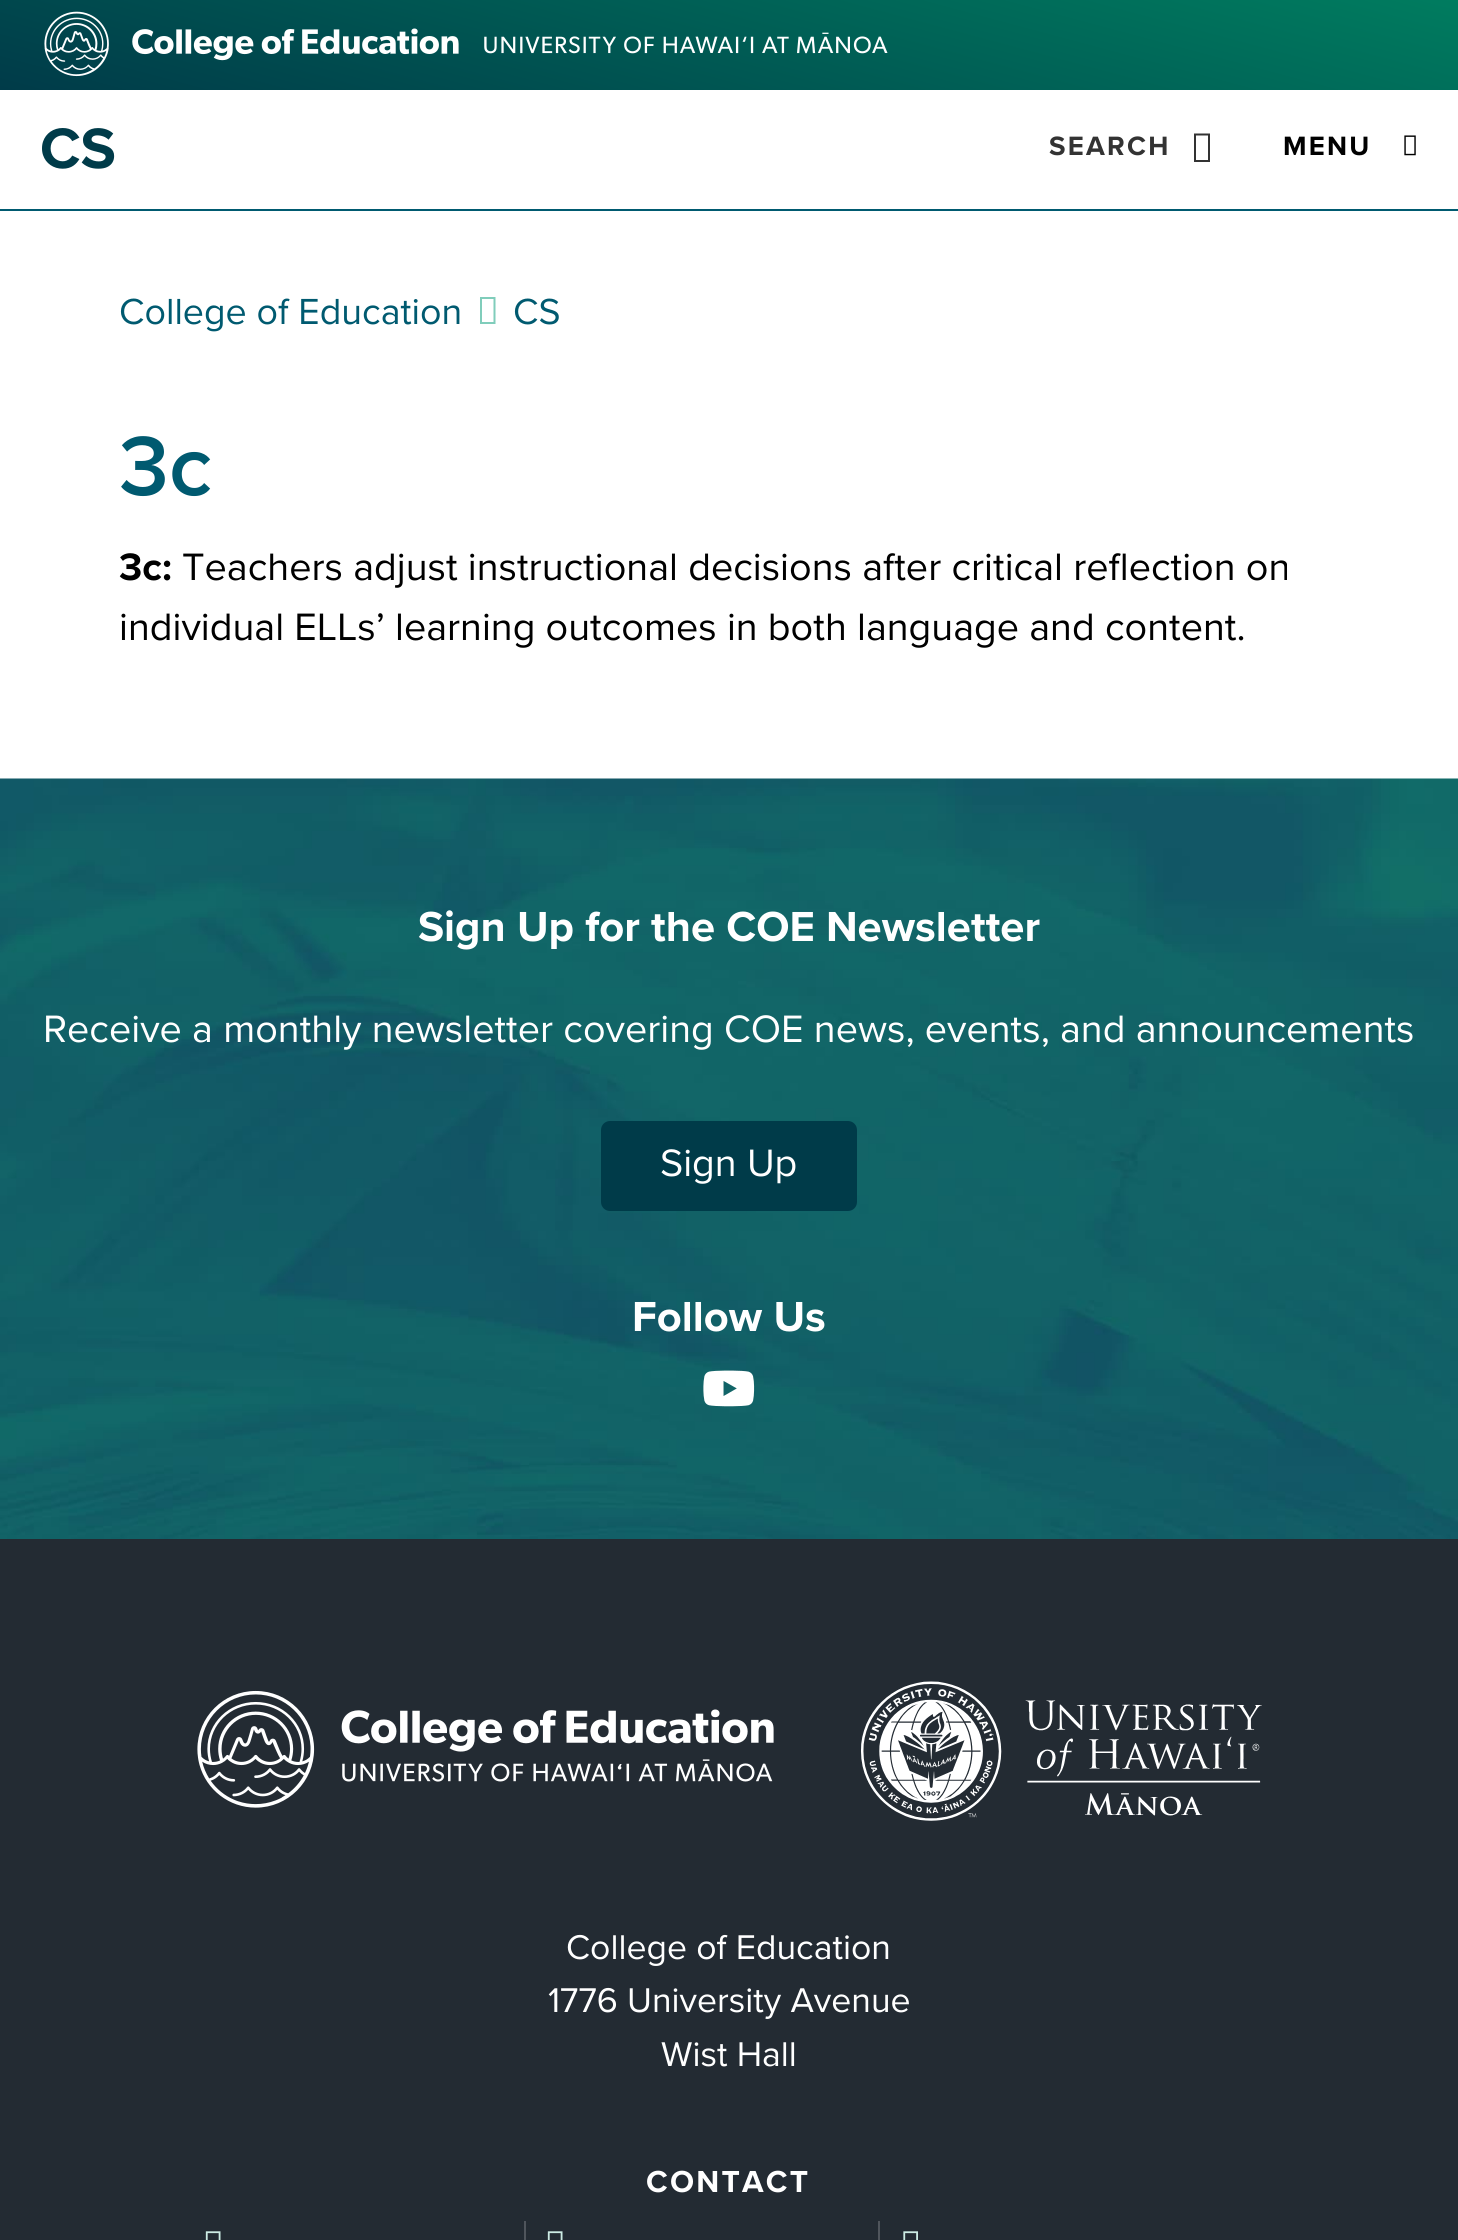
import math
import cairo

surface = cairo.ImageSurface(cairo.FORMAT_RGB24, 1458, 2240)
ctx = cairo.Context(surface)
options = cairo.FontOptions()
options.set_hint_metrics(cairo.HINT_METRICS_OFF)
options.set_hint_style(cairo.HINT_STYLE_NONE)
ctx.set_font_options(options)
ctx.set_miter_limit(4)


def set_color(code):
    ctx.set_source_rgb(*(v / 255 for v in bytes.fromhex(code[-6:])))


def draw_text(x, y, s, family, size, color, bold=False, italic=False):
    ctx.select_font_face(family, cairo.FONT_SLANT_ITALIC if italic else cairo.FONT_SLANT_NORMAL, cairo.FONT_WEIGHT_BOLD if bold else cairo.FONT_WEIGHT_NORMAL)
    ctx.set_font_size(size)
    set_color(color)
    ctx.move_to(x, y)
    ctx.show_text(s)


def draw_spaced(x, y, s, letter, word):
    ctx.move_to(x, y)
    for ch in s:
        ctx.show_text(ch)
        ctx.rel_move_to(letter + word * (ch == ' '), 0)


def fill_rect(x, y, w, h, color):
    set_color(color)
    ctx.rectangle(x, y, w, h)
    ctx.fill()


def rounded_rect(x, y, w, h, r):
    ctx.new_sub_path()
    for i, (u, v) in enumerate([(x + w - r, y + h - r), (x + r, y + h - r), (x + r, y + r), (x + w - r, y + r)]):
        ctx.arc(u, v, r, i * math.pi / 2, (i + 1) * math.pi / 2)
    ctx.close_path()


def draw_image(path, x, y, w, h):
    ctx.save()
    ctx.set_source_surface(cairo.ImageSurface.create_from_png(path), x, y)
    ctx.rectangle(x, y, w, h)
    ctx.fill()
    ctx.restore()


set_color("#ffffff")
ctx.paint()
fill_rect(0, 209, 1458, 2, "#005a70")
gradient = cairo.LinearGradient(669, 269, 789, -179)
gradient.add_color_stop_rgba(0, 0, 0.231, 0.286, 1)
gradient.add_color_stop_rgba(1, 0, 0.486, 0.373, 1)
ctx.set_source(gradient)
ctx.rectangle(0, 0, 1458, 90)
ctx.fill()
draw_image("assets/img1.png", 44, 11, 844, 66)
draw_text(40, 168, "CS", "Proxima Nova", 59, "#003b49", bold=True)
ctx.set_font_size(27.5)
set_color("#333333")
draw_spaced(1049, 155, "SEARCH", 2.25, 0)
ctx.new_path()
ctx.move_to(1194, 162)
ctx.line_to(1194, 133.5)
ctx.line_to(1210, 133.5)
ctx.line_to(1210, 162)
ctx.close_path()
ctx.move_to(1196, 160)
ctx.line_to(1208, 160)
ctx.line_to(1208, 135.5)
ctx.line_to(1196, 135.5)
ctx.close_path()
ctx.fill()
set_color("#000000")
draw_spaced(1283, 155, "MENU", 2.25, 0)
draw_image("assets/img2.png", 1404, 135, 12, 21)
draw_text(119, 324, "College of Education", "Proxima Nova", 37.6, "#005a70")
set_color("#80cdbb")
ctx.new_path()
ctx.move_to(480, 324)
ctx.line_to(480, 297)
ctx.line_to(495.5, 297)
ctx.line_to(495.5, 324)
ctx.close_path()
ctx.move_to(482, 322)
ctx.line_to(493.5, 322)
ctx.line_to(493.5, 299)
ctx.line_to(482, 299)
ctx.close_path()
ctx.fill()
draw_text(513, 324, "CS", "Proxima Nova", 37.6, "#005a70")
draw_text(119, 495, "3c", "Proxima Nova SemiBold", 87, "#005a70")
draw_text(119, 580, "3c:", "Proxima Nova", 39.6, "#000000", bold=True)
draw_text(182, 580, "Teachers adjust instructional decisions after critical reflection on", "Proxima Nova", 39.6, "#000000")
draw_text(119, 640, "individual ELLs’ learning outcomes in both language and content.", "Proxima Nova", 39.6, "#000000")
draw_image("assets/img3.png", 0, 778, 1458, 761)
draw_text(418, 941, "Sign Up for the COE Newsletter", "Proxima Nova", 43.5, "#ffffff", bold=True)
draw_text(43, 1042, "Receive a monthly newsletter covering COE news, events, and announcements", "Proxima Nova", 39.6, "#ffffff")
set_color("#003b49")
rounded_rect(601, 1121, 256, 90, 9)
ctx.fill()
draw_text(660, 1176, "Sign Up", "Proxima Nova", 39.6, "#ffffff")
draw_text(632, 1331, "Follow Us", "Proxima Nova", 43.5, "#ffffff", bold=True)
draw_image("assets/img4.png", 703, 1370, 52, 37)
fill_rect(0, 1539, 1458, 701, "#232b33")
draw_image("assets/img5.png", 197, 1690, 577, 118)
draw_image("assets/img6.png", 861, 1681, 401, 140)
draw_text(566, 1959, "College of Education", "Proxima Nova", 35.6, "#ffffff")
draw_text(548, 2012, "1776 University Avenue", "Proxima Nova", 35.6, "#ffffff")
draw_text(661, 2066, "Wist Hall", "Proxima Nova", 35.6, "#ffffff")
ctx.select_font_face("Proxima Nova", cairo.FONT_SLANT_NORMAL, cairo.FONT_WEIGHT_BOLD)
ctx.set_font_size(31.5)
draw_spaced(646, 2192, "CONTACT", 2.25, 0)
draw_image("assets/img7.png", 205, 2231, 16, 9)
fill_rect(524, 2221, 2, 19, "#4f555c")
draw_image("assets/img7.png", 547, 2231, 16, 9)
fill_rect(878, 2221, 2, 19, "#4f555c")
draw_image("assets/img8.png", 903, 2231, 15, 9)
surface.write_to_png("output.png")
